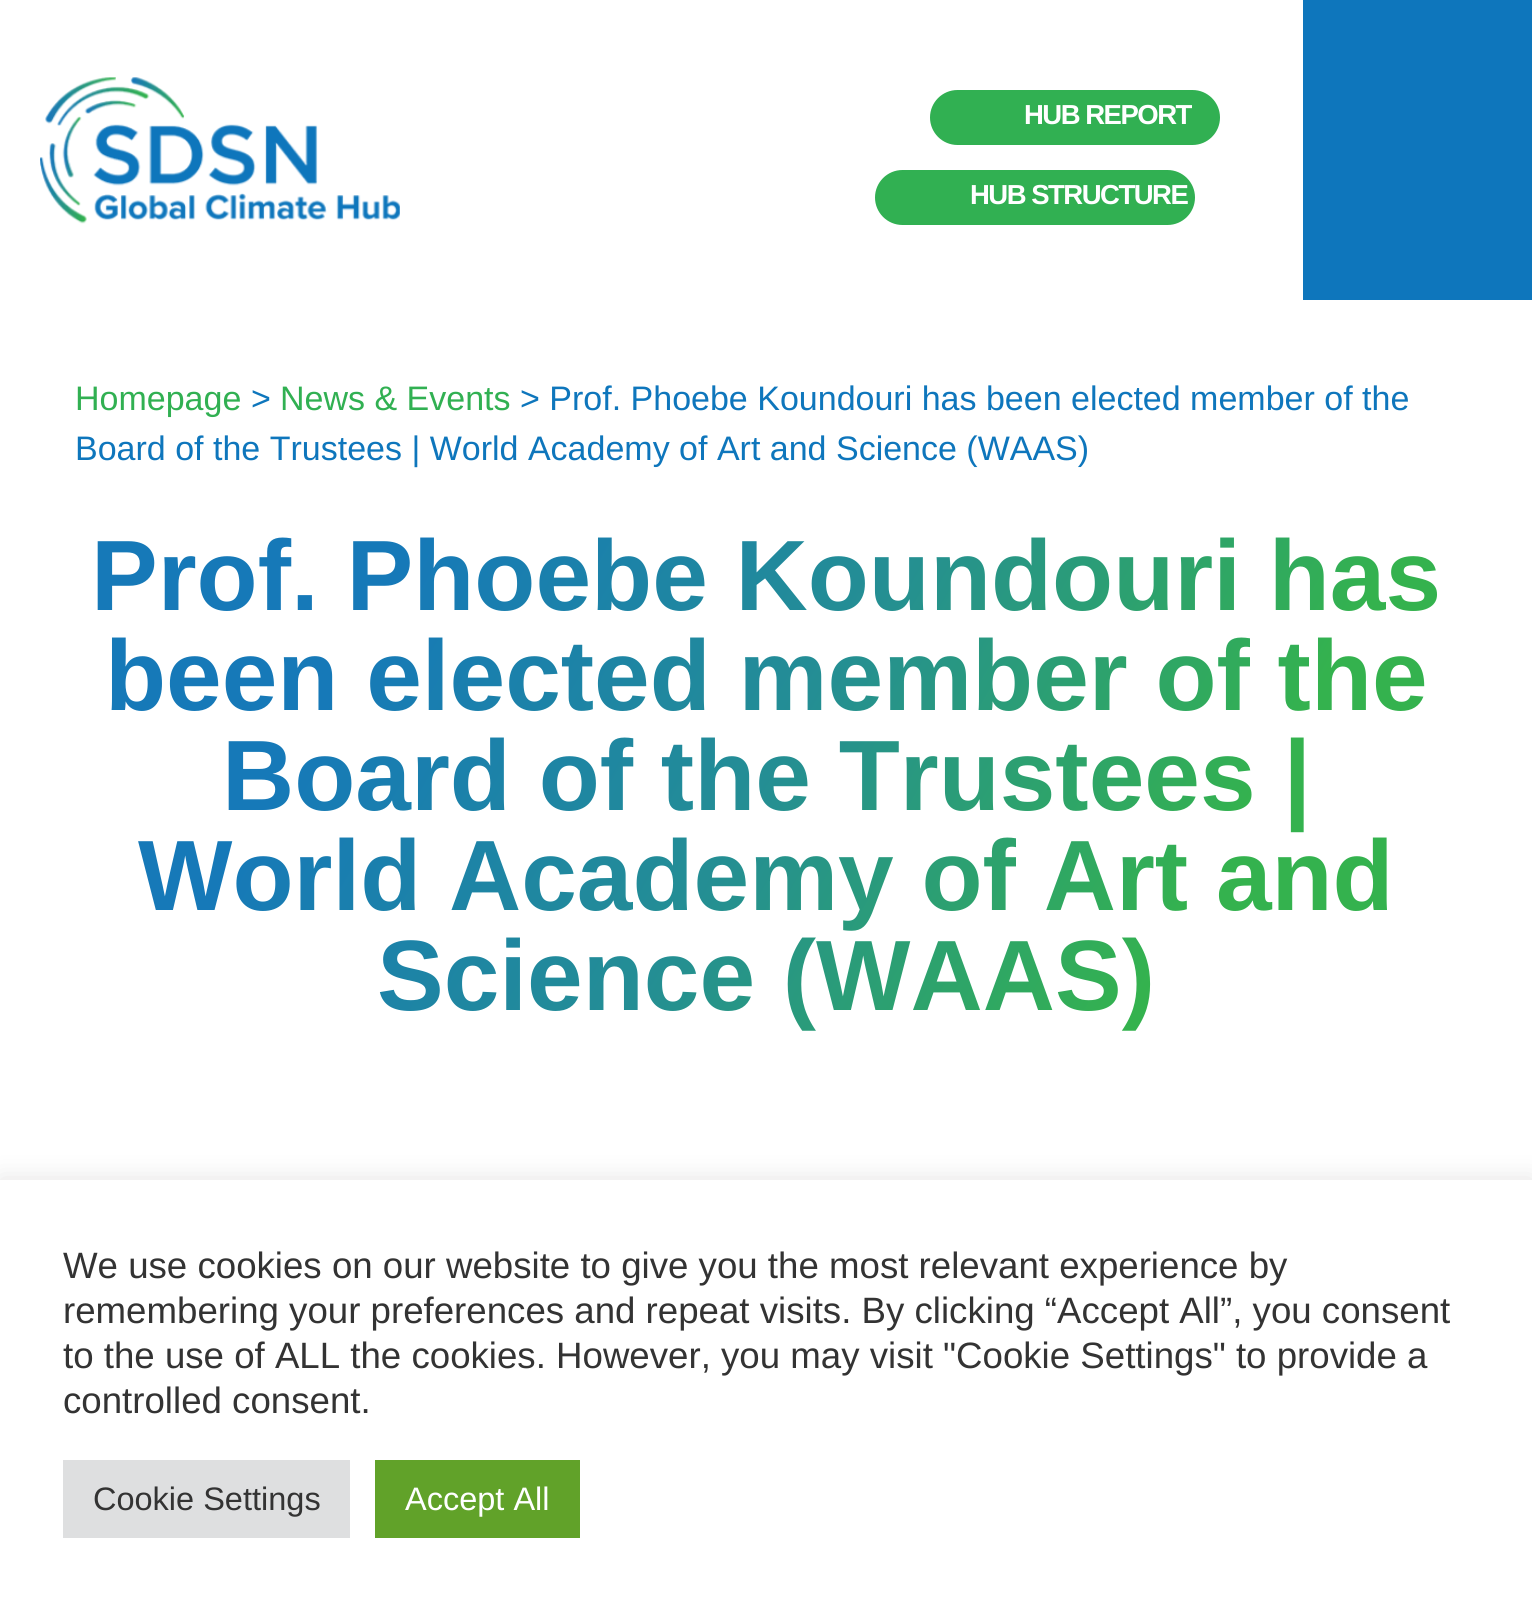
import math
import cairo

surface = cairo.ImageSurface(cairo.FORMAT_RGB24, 1532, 1611)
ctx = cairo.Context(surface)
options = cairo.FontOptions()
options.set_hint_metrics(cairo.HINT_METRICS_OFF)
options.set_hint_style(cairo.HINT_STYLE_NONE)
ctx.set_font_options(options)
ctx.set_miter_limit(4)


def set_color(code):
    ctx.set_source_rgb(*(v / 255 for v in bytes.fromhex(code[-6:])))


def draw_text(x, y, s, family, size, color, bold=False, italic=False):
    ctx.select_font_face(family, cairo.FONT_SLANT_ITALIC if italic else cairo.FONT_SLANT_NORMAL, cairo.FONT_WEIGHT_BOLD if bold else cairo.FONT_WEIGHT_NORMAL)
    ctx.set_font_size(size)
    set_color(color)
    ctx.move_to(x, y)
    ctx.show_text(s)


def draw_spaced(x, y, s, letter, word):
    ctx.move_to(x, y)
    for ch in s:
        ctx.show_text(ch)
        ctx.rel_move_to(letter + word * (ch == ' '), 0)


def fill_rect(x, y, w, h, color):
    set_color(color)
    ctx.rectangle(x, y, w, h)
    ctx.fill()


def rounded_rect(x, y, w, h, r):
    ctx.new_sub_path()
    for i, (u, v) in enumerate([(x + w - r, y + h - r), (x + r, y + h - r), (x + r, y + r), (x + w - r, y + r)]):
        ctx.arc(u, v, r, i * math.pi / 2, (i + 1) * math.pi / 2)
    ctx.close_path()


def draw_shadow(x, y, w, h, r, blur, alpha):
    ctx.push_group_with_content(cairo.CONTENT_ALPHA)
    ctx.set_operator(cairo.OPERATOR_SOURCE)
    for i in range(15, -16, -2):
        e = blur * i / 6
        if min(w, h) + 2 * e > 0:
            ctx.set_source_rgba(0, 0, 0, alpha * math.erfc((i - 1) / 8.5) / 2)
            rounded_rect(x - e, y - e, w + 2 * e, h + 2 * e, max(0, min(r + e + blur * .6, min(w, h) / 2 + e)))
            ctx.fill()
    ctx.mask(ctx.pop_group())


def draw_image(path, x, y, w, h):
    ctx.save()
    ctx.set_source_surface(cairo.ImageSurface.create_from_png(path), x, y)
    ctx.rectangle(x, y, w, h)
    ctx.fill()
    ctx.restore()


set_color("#ffffff")
ctx.paint()
draw_image("assets/img1.png", 40, 77, 360, 147)
set_color("#31b052")
rounded_rect(930, 90, 290, 55, 27.5)
ctx.fill()
ctx.select_font_face("Liberation Sans", cairo.FONT_SLANT_NORMAL, cairo.FONT_WEIGHT_BOLD)
ctx.set_font_size(27.5)
set_color("#ffffff")
draw_spaced(1024, 124, "HUB REPORT", -1.5, 0)
set_color("#31b052")
rounded_rect(875, 170, 320, 55, 27.5)
ctx.fill()
set_color("#ffffff")
draw_spaced(970, 204, "HUB STRUCTURE", -1.5, 0)
fill_rect(1303, 0, 229, 300, "#0e76bc")
draw_text(75, 410, "Homepage", "Liberation Sans", 34, "#31b052")
draw_text(251, 410, ">", "Liberation Sans", 34, "#0e76bc")
draw_text(280, 410, "News & Events", "Liberation Sans", 34, "#31b052")
draw_text(520, 410, "> Prof. Phoebe Koundouri has been elected member of the", "Liberation Sans", 34, "#0e76bc")
draw_text(75, 460, "Board of the Trustees | World Academy of Art and Science (WAAS)", "Liberation Sans", 34, "#0e76bc")
ctx.select_font_face("Liberation Sans", cairo.FONT_SLANT_NORMAL, cairo.FONT_WEIGHT_BOLD)
ctx.set_font_size(100)
gradient = cairo.LinearGradient(140, 413, 1393, 1137)
gradient.add_color_stop_rgba(0.21, 0.086, 0.475, 0.722, 1)
gradient.add_color_stop_rgba(0.5, 0.141, 0.557, 0.58, 1)
gradient.add_color_stop_rgba(0.8, 0.204, 0.698, 0.306, 1)
ctx.set_source(gradient)
ctx.move_to(91, 610)
ctx.show_text("Prof. Phoebe Koundouri has")
ctx.move_to(105, 710)
ctx.show_text("been elected member of the")
ctx.move_to(222, 810)
ctx.show_text("Board of the Trustees |")
ctx.move_to(138, 910)
ctx.show_text("World Academy of Art and")
ctx.move_to(377, 1010)
ctx.show_text("Science (WAAS)")
set_color("#acabab")
draw_shadow(0, 1178, 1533, 432, 0, 12.5, 0.3)
fill_rect(0, 1180, 1532, 431, "#ffffff")
draw_text(63, 1278, "We use cookies on our website to give you the most relevant experience by", "Liberation Sans", 36.65, "#333333")
draw_text(63, 1323, "remembering your preferences and repeat visits. By clicking “Accept All”, you consent", "Liberation Sans", 36.65, "#333333")
draw_text(63, 1368, "to the use of ALL the cookies. However, you may visit \"Cookie Settings\" to provide a", "Liberation Sans", 36.65, "#333333")
draw_text(63, 1413, "controlled consent.", "Liberation Sans", 36.65, "#333333")
fill_rect(63, 1460, 287, 78, "#dedfe0")
draw_text(93, 1510, "Cookie Settings", "Liberation Sans", 32.5, "#333333")
fill_rect(375, 1460, 205, 78, "#61a229")
draw_text(405, 1510, "Accept All", "Liberation Sans", 32.5, "#ffffff")
surface.write_to_png("output.png")
